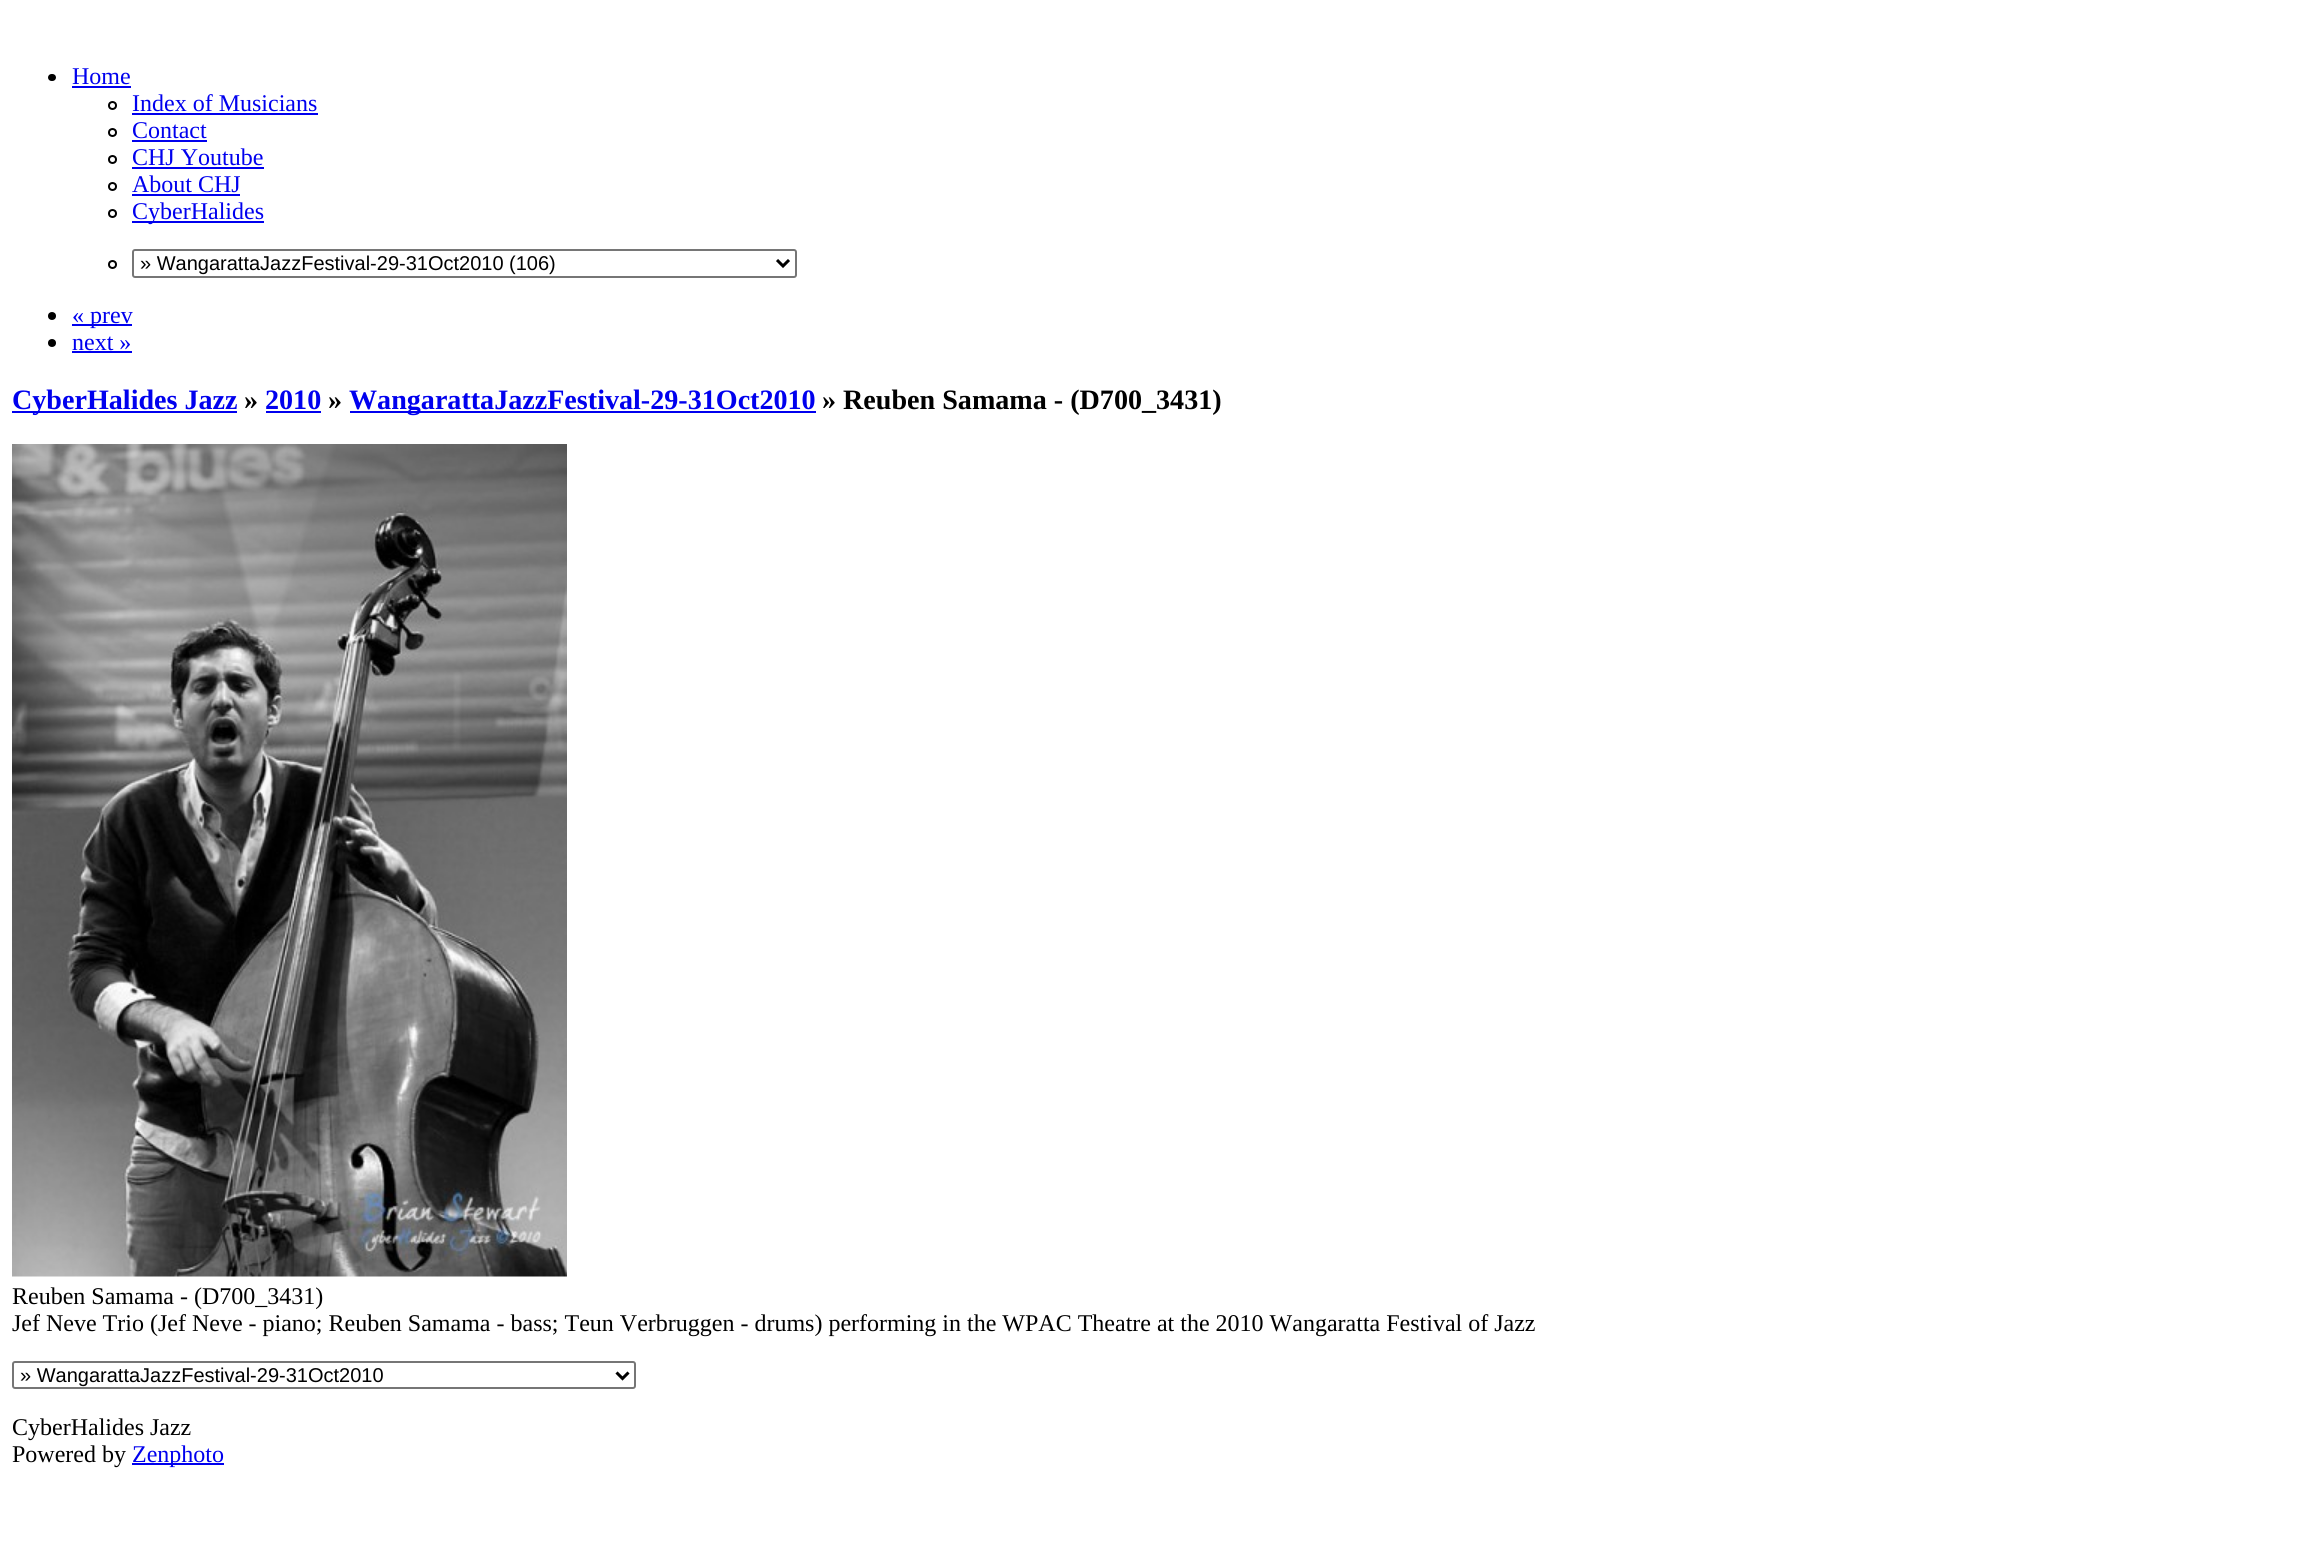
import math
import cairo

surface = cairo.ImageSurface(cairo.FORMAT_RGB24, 2315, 1560)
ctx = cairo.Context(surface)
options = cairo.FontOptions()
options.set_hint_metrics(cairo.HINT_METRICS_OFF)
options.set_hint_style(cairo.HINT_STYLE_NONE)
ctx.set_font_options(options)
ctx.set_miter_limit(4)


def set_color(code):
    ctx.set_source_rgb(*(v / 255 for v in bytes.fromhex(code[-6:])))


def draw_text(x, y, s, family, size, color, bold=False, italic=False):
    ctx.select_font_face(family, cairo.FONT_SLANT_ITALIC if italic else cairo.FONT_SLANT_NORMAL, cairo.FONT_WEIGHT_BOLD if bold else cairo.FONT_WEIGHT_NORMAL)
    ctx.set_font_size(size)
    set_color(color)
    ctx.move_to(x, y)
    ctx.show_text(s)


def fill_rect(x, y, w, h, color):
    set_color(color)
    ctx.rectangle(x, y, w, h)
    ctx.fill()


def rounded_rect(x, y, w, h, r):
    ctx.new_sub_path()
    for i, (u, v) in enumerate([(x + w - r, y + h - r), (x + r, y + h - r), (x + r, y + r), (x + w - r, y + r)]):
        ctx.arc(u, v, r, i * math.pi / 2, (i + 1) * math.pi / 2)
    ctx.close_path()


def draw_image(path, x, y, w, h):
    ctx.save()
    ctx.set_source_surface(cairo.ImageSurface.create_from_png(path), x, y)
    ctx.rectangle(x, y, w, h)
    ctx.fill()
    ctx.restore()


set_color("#ffffff")
ctx.paint()
set_color("#000000")
rounded_rect(48, 74, 8, 7, 3.5)
ctx.fill()
draw_text(72, 84, "Home", "Liberation Serif", 24, "#0000ee")
fill_rect(72, 86, 59, 2, "#0000ee")
ctx.new_path()
ctx.arc(112.5, 105.5, 3.5, 0, 2 * math.pi)
set_color("#000000")
ctx.stroke()
draw_text(132, 111, "Index of Musicians", "Liberation Serif", 24, "#0000ee")
fill_rect(132, 113, 186, 2, "#0000ee")
ctx.new_path()
ctx.arc(112.5, 132.5, 3.5, 0, 2 * math.pi)
set_color("#000000")
ctx.stroke()
draw_text(132, 138, "Contact", "Liberation Serif", 24, "#0000ee")
fill_rect(132, 140, 75, 2, "#0000ee")
ctx.new_path()
ctx.arc(112.5, 159.5, 3.5, 0, 2 * math.pi)
set_color("#000000")
ctx.stroke()
draw_text(132, 165, "CHJ Youtube", "Liberation Serif", 24, "#0000ee")
fill_rect(132, 167, 132, 2, "#0000ee")
ctx.new_path()
ctx.arc(112.5, 186.5, 3.5, 0, 2 * math.pi)
set_color("#000000")
ctx.stroke()
draw_text(132, 192, "About CHJ", "Liberation Serif", 24, "#0000ee")
fill_rect(132, 194, 108, 2, "#0000ee")
ctx.new_path()
ctx.arc(112.5, 213.5, 3.5, 0, 2 * math.pi)
set_color("#000000")
ctx.stroke()
fill_rect(132, 221, 132, 2, "#0000ee")
draw_text(132, 219, "CyberHalides", "Liberation Serif", 24, "#0000ee")
ctx.new_path()
ctx.arc(112.5, 264.5, 3.5, 0, 2 * math.pi)
set_color("#000000")
ctx.stroke()
rounded_rect(133, 250, 663, 27, 2)
set_color("#767676")
ctx.stroke()
ctx.new_path()
ctx.move_to(777, 260)
ctx.line_to(783, 266)
ctx.line_to(789, 260)
set_color("#000000")
ctx.set_line_width(3)
ctx.stroke()
draw_text(140, 270, "» WangarattaJazzFestival-29-31Oct2010 (106)", "Liberation Sans", 20, "#000000")
ctx.new_path()
ctx.arc(52, 316, 4, 0, 2 * math.pi)
ctx.fill()
fill_rect(72, 324, 60, 2, "#0000ee")
draw_text(72, 323, "« prev", "Liberation Serif", 24, "#0000ee")
set_color("#000000")
ctx.new_path()
ctx.arc(52, 343, 4, 0, 2 * math.pi)
ctx.fill()
draw_text(72, 350, "next »", "Liberation Serif", 24, "#0000ee")
fill_rect(72, 351, 60, 2, "#0000ee")
fill_rect(12, 411, 225, 2, "#0000ee")
draw_text(12, 409, "CyberHalides Jazz", "Liberation Serif", 28.1, "#0000ee", bold=True)
draw_text(244, 409, "»", "Liberation Serif", 28.1, "#000000", bold=True)
draw_text(265, 409, "2010", "Liberation Serif", 28.1, "#0000ee", bold=True)
fill_rect(266, 411, 55, 2, "#0000ee")
draw_text(328, 409, "»", "Liberation Serif", 28.1, "#000000", bold=True)
fill_rect(350, 411, 466, 2, "#0000ee")
draw_text(349, 409, "WangarattaJazzFestival-29-31Oct2010", "Liberation Serif", 28.1, "#0000ee", bold=True)
draw_text(822, 409, "» Reuben Samama - (D700_3431)", "Liberation Serif", 28.1, "#000000", bold=True)
draw_image("assets/img1.png", 12, 444, 555, 833)
draw_text(12, 1304, "Reuben Samama - (D700_3431)", "Liberation Serif", 24, "#000000")
draw_text(12, 1331, "Jef Neve Trio (Jef Neve - piano; Reuben Samama - bass; Teun Verbruggen - drums) performing in the WPAC Theatre at the 2010 Wangaratta Festival of Jazz", "Liberation Serif", 24, "#000000")
rounded_rect(13, 1362, 622, 26, 2)
set_color("#767676")
ctx.set_line_width(2)
ctx.stroke()
ctx.new_path()
ctx.move_to(616.5, 1372.5)
ctx.line_to(622.5, 1378.5)
ctx.line_to(628.5, 1372.5)
set_color("#000000")
ctx.set_line_width(3)
ctx.stroke()
draw_text(20, 1382, "» WangarattaJazzFestival-29-31Oct2010", "Liberation Sans", 20, "#000000")
draw_text(12, 1435, "CyberHalides Jazz", "Liberation Serif", 24, "#000000")
draw_text(12, 1462, "Powered by", "Liberation Serif", 24, "#000000")
fill_rect(132, 1463, 92, 2, "#0000ee")
draw_text(132, 1462, "Zenphoto", "Liberation Serif", 24, "#0000ee")
surface.write_to_png("output.png")
